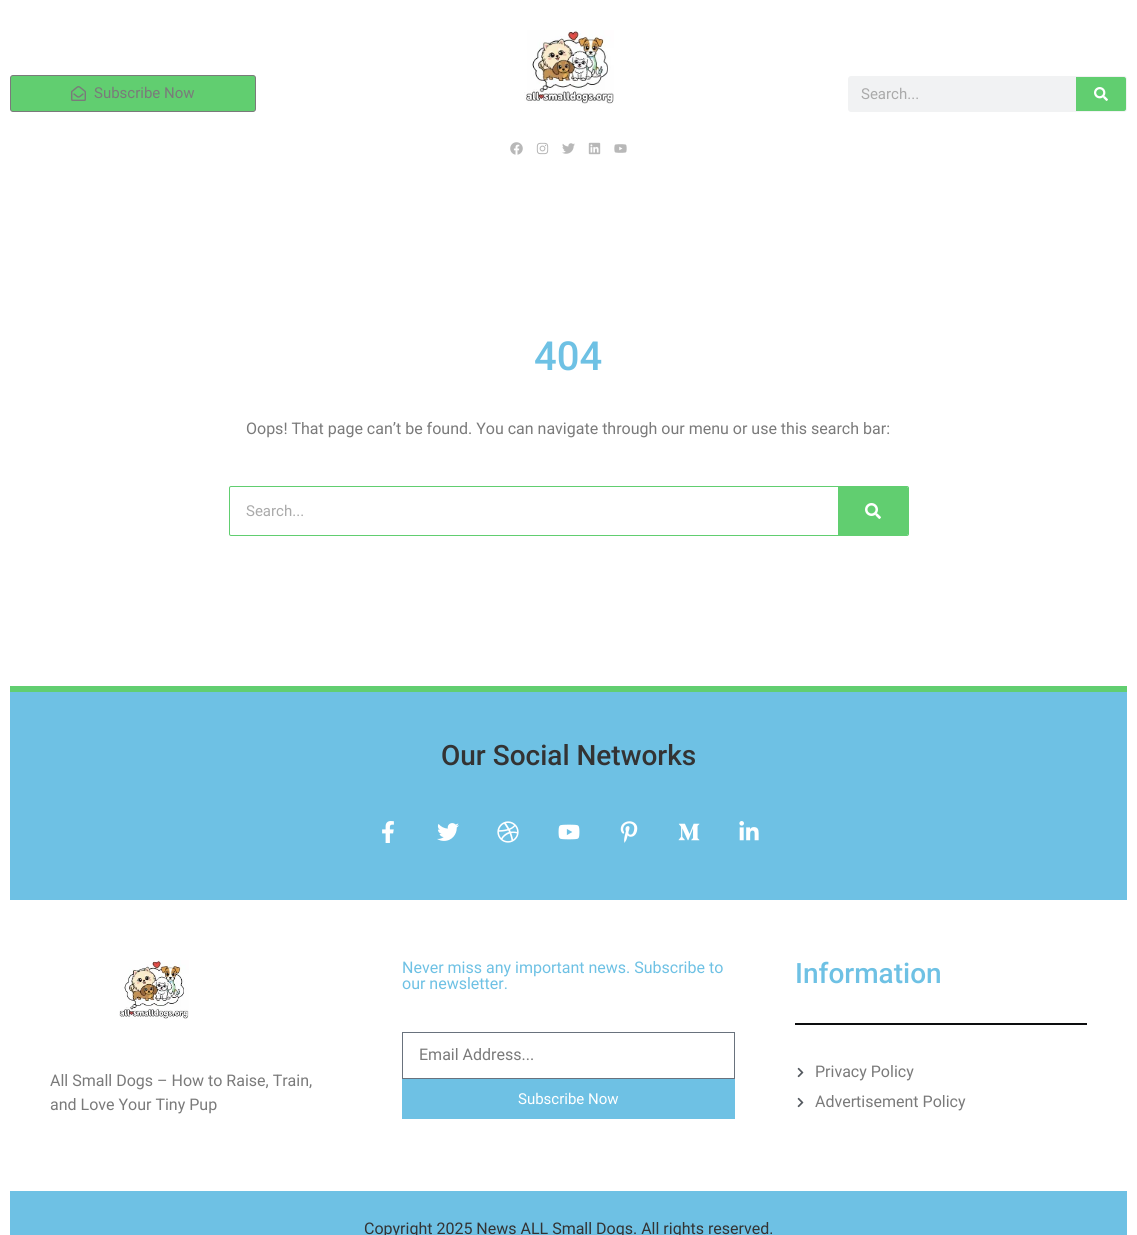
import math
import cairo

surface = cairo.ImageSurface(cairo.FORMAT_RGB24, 1137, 1235)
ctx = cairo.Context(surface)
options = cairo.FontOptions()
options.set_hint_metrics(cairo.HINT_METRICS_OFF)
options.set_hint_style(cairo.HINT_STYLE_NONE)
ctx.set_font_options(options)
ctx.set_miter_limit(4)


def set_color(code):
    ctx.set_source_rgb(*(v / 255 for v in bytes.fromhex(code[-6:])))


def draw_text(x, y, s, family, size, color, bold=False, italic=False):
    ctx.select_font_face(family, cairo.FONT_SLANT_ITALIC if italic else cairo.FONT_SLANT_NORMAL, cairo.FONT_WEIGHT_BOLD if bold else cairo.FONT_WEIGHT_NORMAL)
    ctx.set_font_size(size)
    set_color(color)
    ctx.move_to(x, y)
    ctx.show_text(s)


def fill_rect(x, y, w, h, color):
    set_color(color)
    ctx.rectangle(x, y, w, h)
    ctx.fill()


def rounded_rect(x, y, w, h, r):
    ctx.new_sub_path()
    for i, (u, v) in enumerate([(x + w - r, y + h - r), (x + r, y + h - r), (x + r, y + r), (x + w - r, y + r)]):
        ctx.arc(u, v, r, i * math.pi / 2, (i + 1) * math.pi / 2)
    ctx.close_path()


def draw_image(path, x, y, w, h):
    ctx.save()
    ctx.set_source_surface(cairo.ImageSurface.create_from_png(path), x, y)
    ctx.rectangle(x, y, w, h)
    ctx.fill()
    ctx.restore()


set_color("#ffffff")
ctx.paint()
set_color("#61ce70")
rounded_rect(10.5, 75.5, 245, 36, 2.5)
ctx.fill_preserve()
set_color("#7a7a7a")
ctx.set_line_width(1)
ctx.stroke()
draw_image("assets/img1.png", 71, 86, 15, 15)
draw_text(94, 98, "Subscribe Now", "Roboto", 15, "#7a7a7a")
draw_image("assets/img2.png", 524, 30, 90, 74)
draw_image("assets/img3.png", 510, 142, 13, 13)
draw_image("assets/img4.png", 536, 142, 13, 13)
draw_image("assets/img5.png", 562, 143, 13, 11)
draw_image("assets/img6.png", 588, 142, 13, 13)
draw_image("assets/img7.png", 614, 144, 13, 9)
set_color("#f1f2f3")
rounded_rect(848, 76, 279, 36, 3)
ctx.fill()
draw_text(861, 99, "Search...", "Roboto", 15, "#aaaaaa")
set_color("#61ce70")
ctx.new_path()
ctx.move_to(1076, 77)
ctx.line_to(1124, 77)
ctx.curve_to(1125, 77, 1126, 78, 1126, 79)
ctx.line_to(1126, 109)
ctx.curve_to(1126, 110, 1125, 111, 1124, 111)
ctx.line_to(1076, 111)
ctx.close_path()
ctx.fill()
draw_image("assets/img8.png", 1094, 87, 14, 14)
draw_text(534, 370, "404", "Roboto Medium", 40, "#6ec1e4")
draw_text(246, 434, "Oops! That page can’t be found. You can navigate through our menu or use this search bar:", "Roboto", 16, "#7a7a7a")
rounded_rect(229.5, 486.5, 679, 49, 1.5)
set_color("#61ce70")
ctx.stroke()
draw_text(246, 516, "Search...", "Roboto", 15, "#aaaaaa")
set_color("#61ce70")
ctx.new_path()
ctx.move_to(838, 487)
ctx.line_to(907, 487)
ctx.curve_to(907.5, 487, 908, 487.5, 908, 488)
ctx.line_to(908, 534)
ctx.curve_to(908, 534.5, 907.5, 535, 907, 535)
ctx.line_to(838, 535)
ctx.close_path()
ctx.fill()
draw_image("assets/img9.png", 865, 503, 16, 16)
fill_rect(10, 692, 1117, 208, "#6ec1e4")
fill_rect(10, 686, 1117, 6, "#61ce70")
draw_text(441, 765, "Our Social Networks", "Roboto Medium", 28, "#333333")
draw_image("assets/img10.png", 382, 821, 12, 22)
draw_image("assets/img11.png", 437, 823, 22, 18)
draw_image("assets/img12.png", 497, 821, 22, 22)
draw_image("assets/img13.png", 558, 824, 22, 16)
draw_image("assets/img14.png", 620, 821, 18, 22)
draw_image("assets/img15.png", 678, 823, 22, 18)
draw_image("assets/img16.png", 739, 821, 20, 20)
draw_image("assets/img17.png", 119, 960, 70, 59)
draw_text(50, 1086, "All Small Dogs – How to Raise, Train,", "Roboto", 16, "#7a7a7a")
draw_text(50, 1110, "and Love Your Tiny Pup", "Roboto", 16, "#7a7a7a")
draw_text(402, 973, "Never miss any important news. Subscribe to", "Roboto", 16, "#6ec1e4")
draw_text(402, 989, "our newsletter.", "Roboto", 16, "#6ec1e4")
ctx.rectangle(402.5, 1032.5, 332, 46)
set_color("#69727d")
ctx.stroke()
draw_text(419, 1060, "Email Address...", "Roboto", 16, "#7a7a7a")
fill_rect(402, 1079, 333, 40, "#6ec1e4")
draw_text(518, 1104, "Subscribe Now", "Roboto", 15, "#ffffff")
draw_text(795, 983, "Information", "Roboto Medium", 28, "#6ec1e4")
fill_rect(795, 1023, 292, 2, "#0c0d0e")
draw_image("assets/img18.png", 797, 1067, 7, 11)
draw_text(815, 1077, "Privacy Policy", "Roboto", 16, "#7a7a7a")
draw_image("assets/img18.png", 797, 1097, 7, 11)
draw_text(815, 1107, "Advertisement Policy", "Roboto", 16, "#7a7a7a")
fill_rect(10, 1191, 1117, 44, "#6ec1e4")
draw_text(364, 1234, "Copyright 2025 News ALL Small Dogs. All rights reserved.", "Roboto", 16, "#333333")
surface.write_to_png("output.png")
